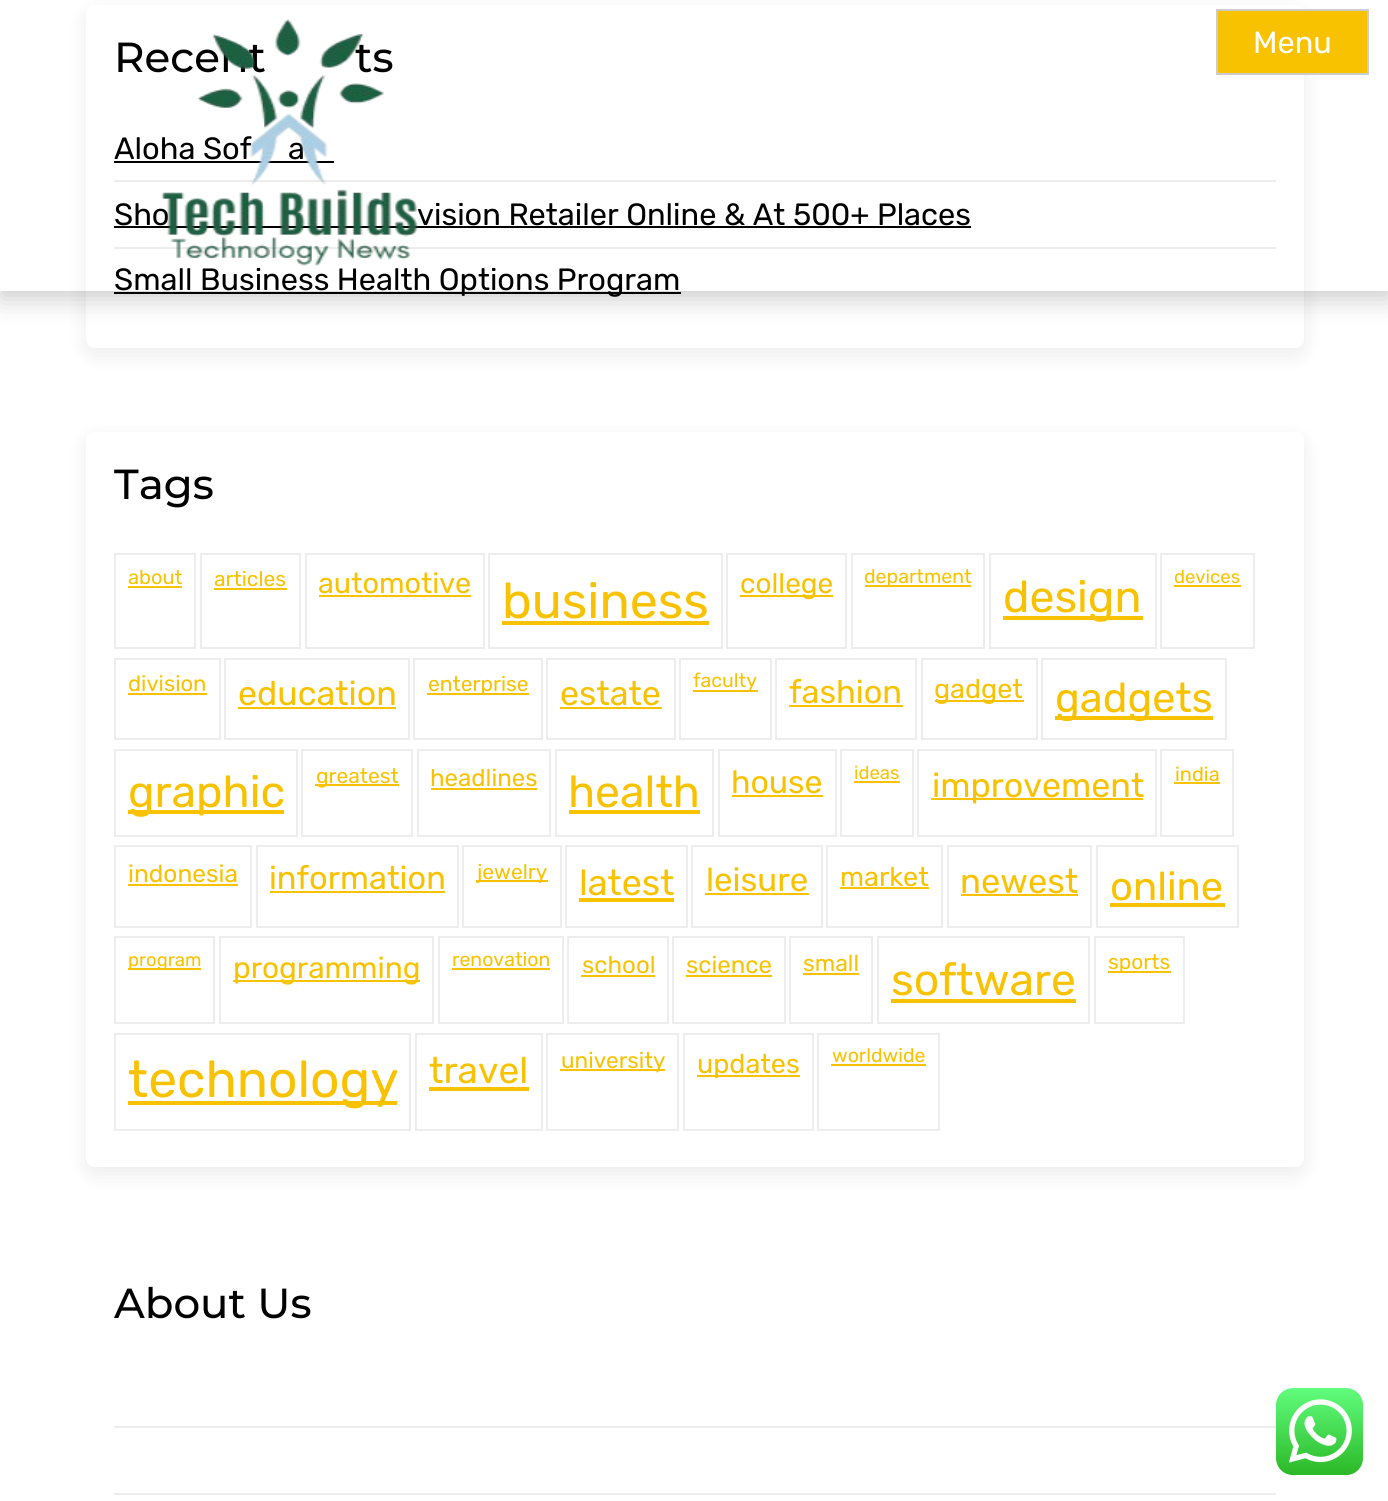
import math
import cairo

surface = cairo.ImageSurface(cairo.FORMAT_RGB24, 1388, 1501)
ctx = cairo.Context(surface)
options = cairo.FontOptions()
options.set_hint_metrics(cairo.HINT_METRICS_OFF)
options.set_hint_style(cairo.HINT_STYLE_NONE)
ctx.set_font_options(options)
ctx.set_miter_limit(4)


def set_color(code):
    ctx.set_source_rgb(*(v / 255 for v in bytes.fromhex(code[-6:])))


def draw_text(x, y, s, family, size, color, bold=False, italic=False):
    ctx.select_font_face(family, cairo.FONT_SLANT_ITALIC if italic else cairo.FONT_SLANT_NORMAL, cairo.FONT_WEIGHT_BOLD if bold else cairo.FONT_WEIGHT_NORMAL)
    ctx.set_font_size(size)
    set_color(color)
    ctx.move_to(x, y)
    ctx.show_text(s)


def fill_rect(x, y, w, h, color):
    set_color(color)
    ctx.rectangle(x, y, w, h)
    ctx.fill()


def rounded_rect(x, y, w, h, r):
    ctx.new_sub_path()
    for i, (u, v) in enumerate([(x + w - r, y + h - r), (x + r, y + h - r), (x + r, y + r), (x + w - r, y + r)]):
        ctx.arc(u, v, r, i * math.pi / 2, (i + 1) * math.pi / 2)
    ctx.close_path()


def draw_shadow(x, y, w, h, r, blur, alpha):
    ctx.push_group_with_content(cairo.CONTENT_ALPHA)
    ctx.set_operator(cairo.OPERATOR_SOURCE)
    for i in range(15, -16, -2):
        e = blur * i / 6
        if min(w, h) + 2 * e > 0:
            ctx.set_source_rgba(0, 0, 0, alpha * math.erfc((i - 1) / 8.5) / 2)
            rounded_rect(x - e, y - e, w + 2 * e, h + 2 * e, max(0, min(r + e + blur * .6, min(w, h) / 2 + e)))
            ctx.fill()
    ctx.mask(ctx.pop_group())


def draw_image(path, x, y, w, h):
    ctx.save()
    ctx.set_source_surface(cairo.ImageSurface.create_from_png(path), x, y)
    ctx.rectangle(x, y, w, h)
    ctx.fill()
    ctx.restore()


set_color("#ffffff")
ctx.paint()
ctx.save()
ctx.set_fill_rule(cairo.FILL_RULE_EVEN_ODD)
ctx.new_path()
ctx.move_to(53, 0)
ctx.line_to(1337, 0)
ctx.line_to(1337, 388)
ctx.line_to(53, 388)
ctx.close_path()
ctx.move_to(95, 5)
ctx.line_to(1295, 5)
ctx.curve_to(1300, 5, 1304, 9, 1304, 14)
ctx.line_to(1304, 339)
ctx.curve_to(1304, 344, 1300, 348, 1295, 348)
ctx.line_to(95, 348)
ctx.curve_to(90, 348, 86, 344, 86, 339)
ctx.line_to(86, 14)
ctx.curve_to(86, 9, 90, 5, 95, 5)
ctx.close_path()
ctx.clip()
set_color("#000000")
draw_shadow(86, 12, 1218, 343, 9, 10.5, 0.08)
ctx.restore()
fill_rect(114, 180, 1162, 2, "#ededed")
fill_rect(114, 161, 220, 2, "#000000")
fill_rect(114, 247, 1162, 2, "#ededed")
fill_rect(114, 226, 857, 2, "#000000")
fill_rect(114, 292, 567, 2, "#000000")
ctx.save()
ctx.set_fill_rule(cairo.FILL_RULE_EVEN_ODD)
ctx.new_path()
ctx.move_to(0, 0)
ctx.line_to(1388, 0)
ctx.line_to(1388, 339)
ctx.line_to(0, 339)
ctx.close_path()
ctx.move_to(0, 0)
ctx.line_to(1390, 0)
ctx.line_to(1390, 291)
ctx.line_to(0, 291)
ctx.close_path()
ctx.clip()
set_color("#000000")
draw_shadow(0, 9, 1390, 290, 0, 13, 0.2)
ctx.restore()
draw_text(114, 72, "Recent", "Montserrat Medium", 42, "#000000")
draw_text(355, 72, "ts", "Montserrat Medium", 42, "#000000")
draw_text(114, 159, "Aloha Sof", "Rubik", 30.75, "#000000")
draw_text(288, 159, "a", "Rubik", 30.75, "#000000")
draw_text(114, 225, "Sho", "Rubik", 30.75, "#000000")
draw_image("assets/img1.png", 161, 19, 257, 247)
draw_text(417, 225, "vision Retailer Online & At 500+ Places", "Rubik", 30.75, "#000000")
draw_text(114, 290, "Small Business Health Options Program", "Rubik", 30.75, "#000000")
ctx.save()
ctx.set_fill_rule(cairo.FILL_RULE_EVEN_ODD)
ctx.new_path()
ctx.move_to(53, 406)
ctx.line_to(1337, 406)
ctx.line_to(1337, 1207)
ctx.line_to(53, 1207)
ctx.close_path()
ctx.move_to(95, 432)
ctx.line_to(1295, 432)
ctx.curve_to(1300, 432, 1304, 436, 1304, 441)
ctx.line_to(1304, 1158)
ctx.curve_to(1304, 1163, 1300, 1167, 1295, 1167)
ctx.line_to(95, 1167)
ctx.curve_to(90, 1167, 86, 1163, 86, 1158)
ctx.line_to(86, 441)
ctx.curve_to(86, 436, 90, 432, 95, 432)
ctx.close_path()
ctx.clip()
set_color("#000000")
draw_shadow(86, 439, 1218, 735, 9, 10.5, 0.08)
ctx.restore()
draw_text(114, 499, "Tags", "Montserrat Medium", 42, "#000000")
ctx.rectangle(115, 554, 80, 94)
set_color("#ededed")
ctx.stroke()
draw_text(128, 584, "about", "Rubik", 20, "#f9c200")
fill_rect(128, 586, 54, 2, "#f9c200")
ctx.rectangle(201, 554, 99, 94)
set_color("#ededed")
ctx.stroke()
draw_text(214, 586, "articles", "Rubik", 21, "#f9c200")
fill_rect(214, 588, 73, 2, "#f9c200")
ctx.rectangle(306, 554, 178, 94)
set_color("#ededed")
ctx.stroke()
draw_text(318, 593, "automotive", "Rubik", 28.75, "#f9c200")
fill_rect(319, 595, 152, 2, "#f9c200")
ctx.rectangle(489, 554, 233, 94)
set_color("#ededed")
ctx.stroke()
draw_text(502, 618, "business", "Rubik", 50, "#f9c200")
fill_rect(502, 621, 207, 4, "#f9c200")
ctx.rectangle(727, 554, 119, 94)
set_color("#ededed")
ctx.stroke()
fill_rect(740, 595, 93, 2, "#f9c200")
draw_text(740, 593, "college", "Rubik", 28, "#f9c200")
ctx.rectangle(852, 554, 132, 94)
set_color("#ededed")
ctx.stroke()
fill_rect(865, 585, 106, 2, "#f9c200")
draw_text(864, 583, "department", "Rubik", 19.5, "#f9c200")
ctx.rectangle(990, 554, 166, 94)
set_color("#ededed")
ctx.stroke()
fill_rect(1003, 616, 140, 4, "#f9c200")
draw_text(1003, 612, "design", "Rubik", 44.5, "#f9c200")
ctx.rectangle(1161, 554, 93, 94)
set_color("#ededed")
ctx.stroke()
draw_text(1174, 583, "devices", "Rubik", 18.5, "#f9c200")
fill_rect(1174, 585, 67, 2, "#f9c200")
ctx.rectangle(115, 659, 105, 80)
set_color("#ededed")
ctx.stroke()
draw_text(128, 691, "division", "Rubik", 22, "#f9c200")
fill_rect(128, 693, 79, 2, "#f9c200")
ctx.rectangle(225, 659, 184, 80)
set_color("#ededed")
ctx.stroke()
draw_text(238, 705, "education", "Rubik", 34, "#f9c200")
fill_rect(238, 707, 158, 2, "#f9c200")
ctx.rectangle(414, 659, 128, 80)
set_color("#ededed")
ctx.stroke()
fill_rect(427, 693, 102, 2, "#f9c200")
draw_text(428, 691, "enterprise", "Rubik", 21, "#f9c200")
ctx.rectangle(547, 659, 128, 80)
set_color("#ededed")
ctx.stroke()
draw_text(560, 705, "estate", "Rubik", 34, "#f9c200")
fill_rect(560, 707, 102, 2, "#f9c200")
ctx.rectangle(680, 659, 91, 80)
set_color("#ededed")
ctx.stroke()
fill_rect(693, 690, 65, 2, "#f9c200")
draw_text(693, 687, "faculty", "Rubik", 19.5, "#f9c200")
ctx.rectangle(776, 659, 140, 80)
set_color("#ededed")
ctx.stroke()
draw_text(789, 703, "fashion", "Rubik", 32.5, "#f9c200")
fill_rect(789, 705, 114, 2, "#f9c200")
ctx.rectangle(922, 659, 115, 80)
set_color("#ededed")
ctx.stroke()
fill_rect(935, 700, 89, 2, "#f9c200")
draw_text(934, 698, "gadget", "Rubik", 27, "#f9c200")
ctx.rectangle(1042, 659, 184, 80)
set_color("#ededed")
ctx.stroke()
fill_rect(1055, 716, 158, 4, "#f9c200")
draw_text(1055, 712, "gadgets", "Rubik", 41.5, "#f9c200")
ctx.rectangle(115, 750, 182, 86)
set_color("#ededed")
ctx.stroke()
fill_rect(128, 810, 156, 4, "#f9c200")
draw_text(128, 807, "graphic", "Rubik", 44.5, "#f9c200")
ctx.rectangle(302, 750, 110, 86)
set_color("#ededed")
ctx.stroke()
fill_rect(315, 784, 84, 2, "#f9c200")
draw_text(316, 783, "greatest", "Rubik", 21, "#f9c200")
ctx.rectangle(418, 750, 132, 86)
set_color("#ededed")
ctx.stroke()
draw_text(430, 786, "headlines", "Rubik", 24, "#f9c200")
fill_rect(431, 788, 106, 2, "#f9c200")
ctx.rectangle(556, 750, 157, 86)
set_color("#ededed")
ctx.stroke()
draw_text(568, 807, "health", "Rubik", 44.5, "#f9c200")
fill_rect(569, 810, 131, 4, "#f9c200")
ctx.rectangle(719, 750, 117, 86)
set_color("#ededed")
ctx.stroke()
draw_text(731, 793, "house", "Rubik", 32, "#f9c200")
fill_rect(732, 795, 91, 2, "#f9c200")
ctx.rectangle(841, 750, 72, 86)
set_color("#ededed")
ctx.stroke()
draw_text(854, 779, "ideas", "Rubik", 18.5, "#f9c200")
fill_rect(854, 781, 46, 2, "#f9c200")
ctx.rectangle(918, 750, 238, 86)
set_color("#ededed")
ctx.stroke()
fill_rect(931, 798, 212, 2, "#f9c200")
draw_text(932, 797, "improvement", "Rubik", 34, "#f9c200")
ctx.rectangle(1161, 750, 72, 86)
set_color("#ededed")
ctx.stroke()
draw_text(1175, 781, "india", "Rubik", 20, "#f9c200")
fill_rect(1174, 782, 46, 2, "#f9c200")
ctx.rectangle(115, 846, 136, 81)
set_color("#ededed")
ctx.stroke()
draw_text(128, 882, "indonesia", "Rubik", 24.5, "#f9c200")
fill_rect(128, 884, 110, 2, "#f9c200")
ctx.rectangle(257, 846, 201, 81)
set_color("#ededed")
ctx.stroke()
draw_text(269, 889, "information", "Rubik", 32.5, "#f9c200")
fill_rect(270, 891, 175, 2, "#f9c200")
ctx.rectangle(463, 846, 98, 81)
set_color("#ededed")
ctx.stroke()
fill_rect(476, 880, 72, 2, "#f9c200")
draw_text(477, 879, "jewelry", "Rubik", 21, "#f9c200")
ctx.rectangle(566, 846, 121, 81)
set_color("#ededed")
ctx.stroke()
draw_text(579, 895, "latest", "Rubik", 36, "#f9c200")
fill_rect(579, 898, 95, 4, "#f9c200")
ctx.rectangle(692, 846, 130, 81)
set_color("#ededed")
ctx.stroke()
draw_text(706, 891, "leisure", "Rubik", 33, "#f9c200")
fill_rect(705, 893, 104, 2, "#f9c200")
ctx.rectangle(827, 846, 115, 81)
set_color("#ededed")
ctx.stroke()
draw_text(840, 886, "market", "Rubik", 27, "#f9c200")
fill_rect(840, 887, 89, 2, "#f9c200")
ctx.rectangle(948, 846, 143, 81)
set_color("#ededed")
ctx.stroke()
draw_text(960, 893, "newest", "Rubik", 34.5, "#f9c200")
fill_rect(961, 894, 117, 2, "#f9c200")
ctx.rectangle(1097, 846, 141, 81)
set_color("#ededed")
ctx.stroke()
draw_text(1110, 900, "online", "Rubik", 40, "#f9c200")
fill_rect(1110, 903, 115, 4, "#f9c200")
ctx.rectangle(115, 937, 99, 86)
set_color("#ededed")
ctx.stroke()
fill_rect(128, 968, 73, 2, "#f9c200")
draw_text(128, 966, "program", "Rubik", 18.5, "#f9c200")
ctx.rectangle(220, 937, 213, 86)
set_color("#ededed")
ctx.stroke()
fill_rect(233, 980, 187, 2, "#f9c200")
draw_text(233, 978, "programming", "Rubik", 29.75, "#f9c200")
ctx.rectangle(439, 937, 124, 86)
set_color("#ededed")
ctx.stroke()
draw_text(452, 966, "renovation", "Rubik", 19.5, "#f9c200")
fill_rect(452, 968, 98, 2, "#f9c200")
ctx.rectangle(568, 937, 100, 86)
set_color("#ededed")
ctx.stroke()
draw_text(582, 973, "school", "Rubik", 24, "#f9c200")
fill_rect(581, 975, 74, 2, "#f9c200")
ctx.rectangle(673, 937, 112, 86)
set_color("#ededed")
ctx.stroke()
draw_text(686, 973, "science", "Rubik", 24, "#f9c200")
fill_rect(686, 975, 86, 2, "#f9c200")
ctx.rectangle(790, 937, 82, 86)
set_color("#ededed")
ctx.stroke()
draw_text(803, 971, "small", "Rubik", 23, "#f9c200")
fill_rect(803, 973, 56, 2, "#f9c200")
ctx.rectangle(878, 937, 211, 86)
set_color("#ededed")
ctx.stroke()
draw_text(891, 995, "software", "Rubik", 44.5, "#f9c200")
fill_rect(891, 999, 185, 4, "#f9c200")
ctx.rectangle(1095, 937, 89, 86)
set_color("#ededed")
ctx.stroke()
fill_rect(1108, 971, 63, 2, "#f9c200")
draw_text(1108, 969, "sports", "Rubik", 21, "#f9c200")
ctx.rectangle(115, 1034, 295, 96)
set_color("#ededed")
ctx.stroke()
fill_rect(128, 1101, 269, 4, "#f9c200")
draw_text(128, 1097, "technology", "Rubik", 51.5, "#f9c200")
ctx.rectangle(416, 1034, 126, 96)
set_color("#ededed")
ctx.stroke()
draw_text(429, 1083, "travel", "Rubik", 37, "#f9c200")
fill_rect(429, 1087, 100, 4, "#f9c200")
ctx.rectangle(547, 1034, 131, 96)
set_color("#ededed")
ctx.stroke()
fill_rect(560, 1069, 105, 2, "#f9c200")
draw_text(561, 1068, "university", "Rubik", 22.5, "#f9c200")
ctx.rectangle(684, 1034, 129, 96)
set_color("#ededed")
ctx.stroke()
fill_rect(697, 1075, 103, 2, "#f9c200")
draw_text(697, 1073, "updates", "Rubik", 27, "#f9c200")
ctx.rectangle(818, 1034, 121, 96)
set_color("#ededed")
ctx.stroke()
draw_text(832, 1062, "worldwide", "Rubik", 19.5, "#f9c200")
fill_rect(831, 1064, 95, 2, "#f9c200")
draw_text(114, 1318, "About Us", "Montserrat Medium", 42, "#000000")
fill_rect(114, 1426, 1162, 2, "#ededed")
fill_rect(114, 1493, 1162, 2, "#ededed")
set_color("#f9c200")
ctx.rectangle(1217, 10, 151, 64)
ctx.fill_preserve()
set_color("#cccccc")
ctx.stroke()
draw_text(1253, 53, "Menu", "Rubik", 30.75, "#ffffff")
draw_image("assets/img2.png", 1276, 1388, 87, 87)
surface.write_to_png("output.png")
